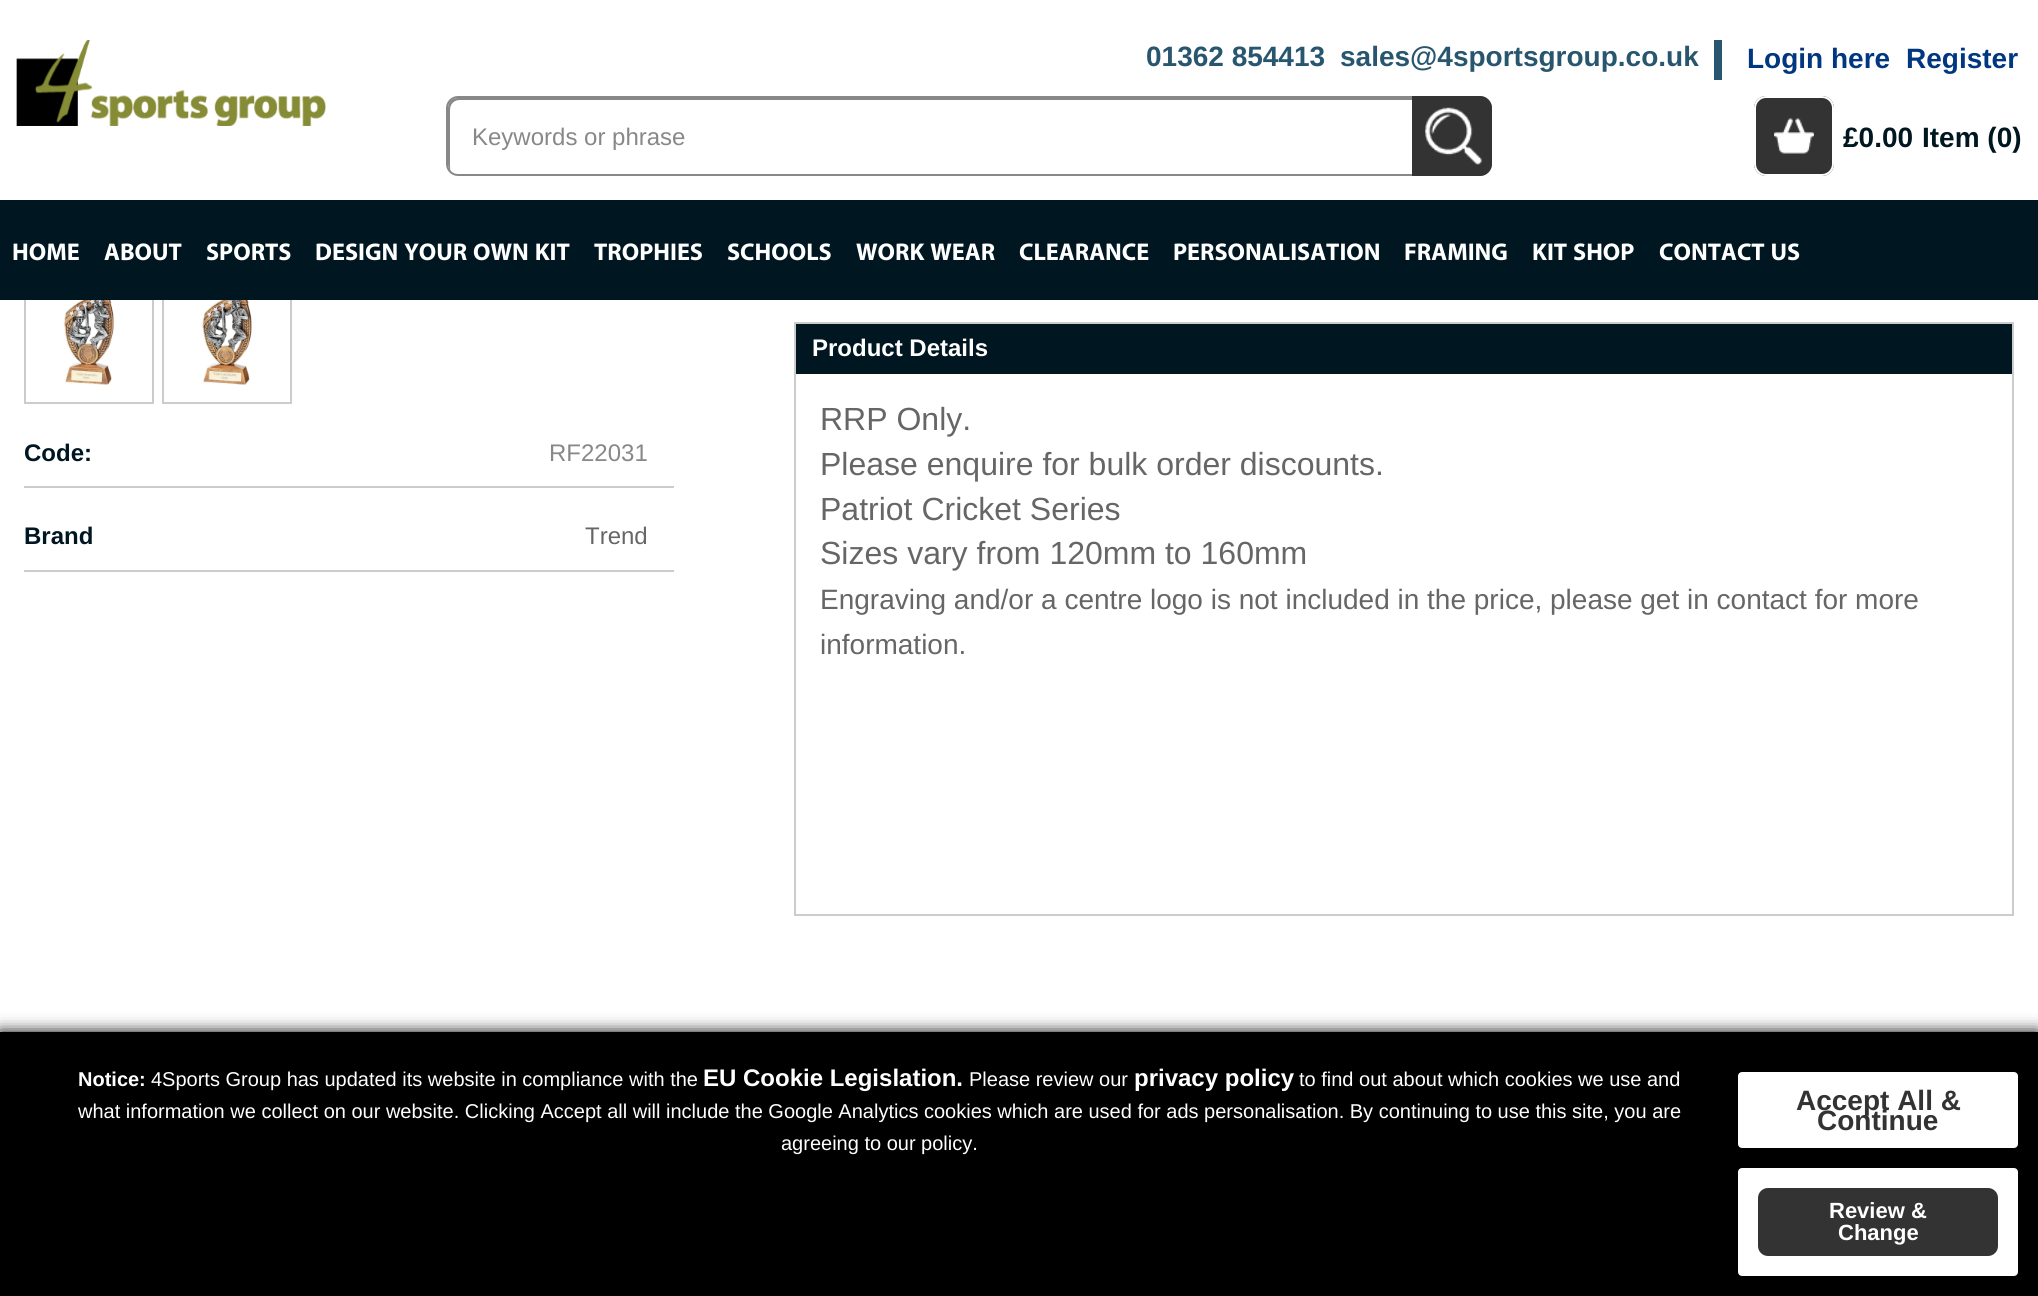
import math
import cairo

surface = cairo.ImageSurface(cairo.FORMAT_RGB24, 2038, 1296)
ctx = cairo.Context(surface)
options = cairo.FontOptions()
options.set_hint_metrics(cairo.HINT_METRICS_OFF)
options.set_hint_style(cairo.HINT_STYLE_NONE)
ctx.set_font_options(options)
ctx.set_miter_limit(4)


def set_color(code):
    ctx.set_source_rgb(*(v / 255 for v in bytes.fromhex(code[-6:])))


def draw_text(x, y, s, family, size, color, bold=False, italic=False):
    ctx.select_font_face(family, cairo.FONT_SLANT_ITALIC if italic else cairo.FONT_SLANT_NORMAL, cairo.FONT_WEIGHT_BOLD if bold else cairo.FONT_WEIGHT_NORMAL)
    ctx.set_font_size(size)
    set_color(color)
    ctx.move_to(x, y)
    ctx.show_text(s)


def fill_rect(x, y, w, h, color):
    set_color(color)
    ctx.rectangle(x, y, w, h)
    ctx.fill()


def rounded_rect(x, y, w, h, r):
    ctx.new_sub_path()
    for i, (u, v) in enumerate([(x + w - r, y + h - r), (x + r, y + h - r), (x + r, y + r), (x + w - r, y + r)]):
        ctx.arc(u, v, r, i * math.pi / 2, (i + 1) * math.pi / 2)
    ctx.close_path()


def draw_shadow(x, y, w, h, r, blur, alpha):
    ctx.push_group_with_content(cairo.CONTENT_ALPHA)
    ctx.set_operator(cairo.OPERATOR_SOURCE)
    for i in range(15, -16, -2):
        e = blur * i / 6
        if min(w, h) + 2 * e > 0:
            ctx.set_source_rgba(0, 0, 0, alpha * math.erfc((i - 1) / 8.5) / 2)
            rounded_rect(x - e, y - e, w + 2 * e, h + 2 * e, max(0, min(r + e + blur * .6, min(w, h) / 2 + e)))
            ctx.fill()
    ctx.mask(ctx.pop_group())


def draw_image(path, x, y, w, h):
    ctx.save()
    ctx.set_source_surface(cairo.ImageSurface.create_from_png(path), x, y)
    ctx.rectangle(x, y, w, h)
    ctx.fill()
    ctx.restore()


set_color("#ffffff")
ctx.paint()
draw_image("assets/img1.png", 16, 40, 310, 86)
draw_text(1146, 66, "01362 854413", "Liberation Sans", 28, "#28566f", bold=True)
draw_text(1340, 66, "sales@4sportsgroup.co.uk", "Liberation Sans", 28, "#28566f", bold=True)
fill_rect(1714, 40, 8, 40, "#28566f")
draw_text(1747, 68, "Login here", "Liberation Sans", 28, "#003780", bold=True)
draw_text(1906, 68, "Register", "Liberation Sans", 28, "#003780", bold=True)
set_color("#888888")
ctx.new_path()
ctx.move_to(460, 100)
ctx.line_to(1482, 100)
ctx.curve_to(1484, 100, 1486, 100, 1488, 101)
ctx.curve_to(1486, 99, 1483, 98, 1480, 98)
ctx.line_to(458, 98)
ctx.curve_to(452, 98, 448, 102, 448, 108)
ctx.line_to(448, 164)
ctx.curve_to(448, 167, 449, 170, 451, 172)
ctx.curve_to(450, 170, 450, 168, 450, 166)
ctx.line_to(450, 110)
ctx.curve_to(450, 104, 454, 100, 460, 100)
ctx.close_path()
ctx.fill()
rounded_rect(447, 97, 1044, 78, 11)
ctx.stroke()
draw_text(472, 145, "Keywords or phrase", "Liberation Sans", 24, "#888888")
set_color("#333333")
ctx.new_path()
ctx.move_to(1412, 96)
ctx.line_to(1480, 96)
ctx.curve_to(1486.5, 96, 1492, 101.5, 1492, 108)
ctx.line_to(1492, 164)
ctx.curve_to(1492, 170.5, 1486.5, 176, 1480, 176)
ctx.line_to(1412, 176)
ctx.close_path()
ctx.fill()
draw_image("assets/img2.png", 1425, 107, 57, 58)
rounded_rect(1754, 96, 80, 80, 12)
ctx.fill()
draw_image("assets/img3.png", 1774, 118, 40, 36)
rounded_rect(1755, 97, 78, 78, 11)
set_color("#ffffff")
ctx.stroke()
draw_text(1843, 147, "£0.00", "Liberation Sans", 28, "#001722", bold=True)
draw_text(1922, 147, "Item (0)", "Liberation Sans", 28, "#001722", bold=True)
ctx.rectangle(25, 275, 128, 128)
set_color("#cccccc")
ctx.stroke()
ctx.rectangle(163, 275, 128, 128)
ctx.stroke()
fill_rect(0, 200, 2038, 100, "#001722")
draw_text(12, 260, "HOME", "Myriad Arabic", 34, "#ffffff", bold=True)
draw_text(104, 260, "ABOUT", "Myriad Arabic", 34, "#ffffff", bold=True)
draw_text(206, 260, "SPORTS", "Myriad Arabic", 34, "#ffffff", bold=True)
draw_text(315, 260, "DESIGN YOUR OWN KIT", "Myriad Arabic", 34, "#ffffff", bold=True)
draw_text(594, 260, "TROPHIES", "Myriad Arabic", 34, "#ffffff", bold=True)
draw_text(727, 260, "SCHOOLS", "Myriad Arabic", 34, "#ffffff", bold=True)
draw_text(856, 260, "WORK WEAR", "Myriad Arabic", 34, "#ffffff", bold=True)
draw_text(1019, 260, "CLEARANCE", "Myriad Arabic", 34, "#ffffff", bold=True)
draw_text(1173, 260, "PERSONALISATION", "Myriad Arabic", 34, "#ffffff", bold=True)
draw_text(1404, 260, "FRAMING", "Myriad Arabic", 34, "#ffffff", bold=True)
draw_text(1532, 260, "KIT SHOP", "Myriad Arabic", 34, "#ffffff", bold=True)
draw_text(1659, 260, "CONTACT US", "Myriad Arabic", 34, "#ffffff", bold=True)
draw_image("assets/img4.png", 63, 300, 51, 85)
draw_image("assets/img5.png", 202, 300, 50, 85)
fill_rect(24, 486, 650, 2, "#cccccc")
draw_text(24, 461, "Code:", "Liberation Sans", 24, "#001722", bold=True)
draw_text(549, 461, "RF22031", "Liberation Sans", 24, "#888888")
fill_rect(24, 570, 650, 2, "#cccccc")
draw_text(24, 544, "Brand", "Liberation Sans", 24, "#001722", bold=True)
draw_text(585, 544, "Trend", "Liberation Sans", 24, "#666666")
ctx.rectangle(795, 323, 1218, 592)
set_color("#cccccc")
ctx.stroke()
fill_rect(796, 324, 1216, 50, "#001722")
draw_text(812, 356, "Product Details", "Liberation Sans", 24, "#ffffff", bold=True)
draw_text(820, 430, "RRP Only.", "Liberation Sans", 32, "#666666")
draw_text(820, 475, "Please enquire for bulk order discounts.", "Liberation Sans", 32, "#666666")
draw_text(820, 520, "Patriot Cricket Series", "Liberation Sans", 32, "#666666")
draw_text(820, 564, "Sizes vary from 120mm to 160mm", "Liberation Sans", 32, "#666666")
draw_text(820, 609, "Engraving and/or a centre logo is not included in the price, please get in contact for more", "Liberation Sans", 28, "#666666")
draw_text(820, 654, "information.", "Liberation Sans", 28, "#666666")
set_color("#000000")
draw_shadow(0, 1032, 2038, 264, 0, 8, 1)
fill_rect(0, 1032, 2038, 264, "#000000")
draw_text(78, 1086, "Notice:", "Liberation Sans", 20, "#ffffff", bold=True)
draw_text(151, 1086, "4Sports Group has updated its website in compliance with the", "Liberation Sans", 20, "#ffffff")
draw_text(703, 1086, "EU Cookie Legislation.", "Liberation Sans", 24, "#ffffff", bold=True)
draw_text(969, 1086, "Please review our", "Liberation Sans", 20, "#ffffff")
draw_text(1134, 1086, "privacy policy", "Liberation Sans", 24, "#ffffff", bold=True)
draw_text(1299, 1086, "to find out about which cookies we use and", "Liberation Sans", 20, "#ffffff")
draw_text(78, 1118, "what information we collect on our website. Clicking Accept all will include the Google Analytics cookies which are used for ads personalisation. By continuing to use this site, you are", "Liberation Sans", 20, "#ffffff")
draw_text(781, 1150, "agreeing to our policy.", "Liberation Sans", 20, "#ffffff")
rounded_rect(1739, 1073, 278, 74, 3)
ctx.fill_preserve()
ctx.stroke()
draw_text(1796, 1110, "Accept All &", "Liberation Sans", 28, "#333333", bold=True)
draw_text(1817, 1130, "Continue", "Liberation Sans", 28, "#333333", bold=True)
set_color("#ffffff")
rounded_rect(1739, 1169, 278, 106, 3)
ctx.fill_preserve()
ctx.stroke()
set_color("#333333")
rounded_rect(1757, 1187, 242, 70, 11)
ctx.fill_preserve()
set_color("#ffffff")
ctx.stroke()
draw_text(1829, 1218, "Review &", "Liberation Sans", 22, "#ffffff", bold=True)
draw_text(1838, 1240, "Change", "Liberation Sans", 22, "#ffffff", bold=True)
surface.write_to_png("output.png")
